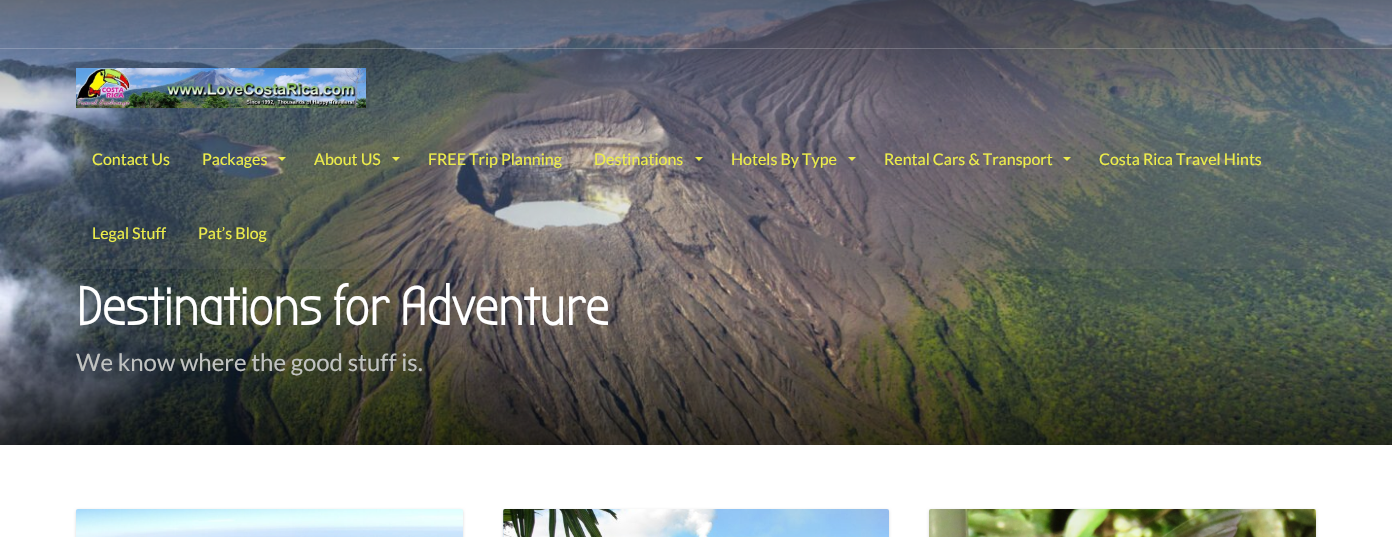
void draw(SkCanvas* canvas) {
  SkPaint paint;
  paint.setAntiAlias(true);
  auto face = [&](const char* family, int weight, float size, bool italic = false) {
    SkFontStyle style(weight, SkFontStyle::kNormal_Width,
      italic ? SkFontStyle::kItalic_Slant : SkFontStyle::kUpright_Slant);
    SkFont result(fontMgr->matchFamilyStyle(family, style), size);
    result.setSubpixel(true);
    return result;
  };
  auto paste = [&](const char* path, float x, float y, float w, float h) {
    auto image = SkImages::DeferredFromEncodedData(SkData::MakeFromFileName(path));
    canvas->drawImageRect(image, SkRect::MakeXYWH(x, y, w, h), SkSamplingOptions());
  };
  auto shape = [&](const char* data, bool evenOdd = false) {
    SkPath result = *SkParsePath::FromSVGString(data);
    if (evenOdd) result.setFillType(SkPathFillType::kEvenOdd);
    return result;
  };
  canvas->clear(0xffffffff);
  paste("img/2.png", 0, 0, 1392, 445);
  paint.setColor(0x336d6d6d);
  canvas->drawRect(SkRect::MakeXYWH(0, 0, 1392, 269), paint);
  paint.setColor(0x33ffffff);
  canvas->drawRect(SkRect::MakeXYWH(0, 48, 1392, 1), paint);
  paste("img/1.png", 76, 68, 290, 41);
  paint.setColor(0xffeded4b);
  canvas->drawPath(shape("M278 157H286L282 161Z"), paint);
  canvas->drawPath(shape("M392 157H400L396 161Z"), paint);
  canvas->drawPath(shape("M695 157H703L699 161Z"), paint);
  canvas->drawPath(shape("M848 157H856L852 161Z"), paint);
  canvas->drawPath(shape("M1063 157H1071L1067 161Z"), paint);
  paint.setColor(0x26000000);
  paint.setMaskFilter(SkMaskFilter::MakeBlur(kNormal_SkBlurStyle, 1.5f));
  canvas->drawRoundRect(SkRect::MakeXYWH(76, 510, 387, 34), 2, 2, paint);
  paint.setMaskFilter(nullptr);
  paste("img/3.png", 76, 509, 387, 28);
  paint.setMaskFilter(SkMaskFilter::MakeBlur(kNormal_SkBlurStyle, 1.5f));
  canvas->drawRoundRect(SkRect::MakeXYWH(503, 510, 386, 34), 2, 2, paint);
  paint.setMaskFilter(nullptr);
  paste("img/4.png", 503, 509, 386, 28);
  paint.setMaskFilter(SkMaskFilter::MakeBlur(kNormal_SkBlurStyle, 1.5f));
  canvas->drawRoundRect(SkRect::MakeXYWH(929, 510, 387, 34), 2, 2, paint);
  paint.setMaskFilter(nullptr);
  paste("img/5.png", 929, 509, 387, 28);
  auto f0 = face("Lato", 400, 16);
  paint.setColor(0xffeded4b);
  {
    const struct { const char* s; float x, y; } items[] = {
      {"Contact Us", 92, 165},
      {"Packages", 202, 165},
      {"About US", 314, 165},
      {"FREE Trip Planning", 428, 165},
      {"Destinations", 594, 165},
      {"Hotels By Type", 731, 165},
      {"Rental Cars & Transport", 884, 165},
      {"Costa Rica Travel Hints", 1099, 165},
      {"Legal Stuff", 92, 239},
      {"Pat’s Blog", 198, 239},
    };
    for (auto [s, x, y] : items) {
      canvas->drawString(s, x, y, f0, paint);
    }
  }
  auto f1 = face("Bubbler One", 700, 54);
  paint.setColor(0xffffffff);
  canvas->drawString("Destinations for Adventure", 76, 325, f1, paint);
  auto f2 = face("Lato", 400, 24);
  paint.setColor(0xffc1c3c1);
  canvas->drawString("We know where the good stuff is.", 76, 371, f2, paint);
}
